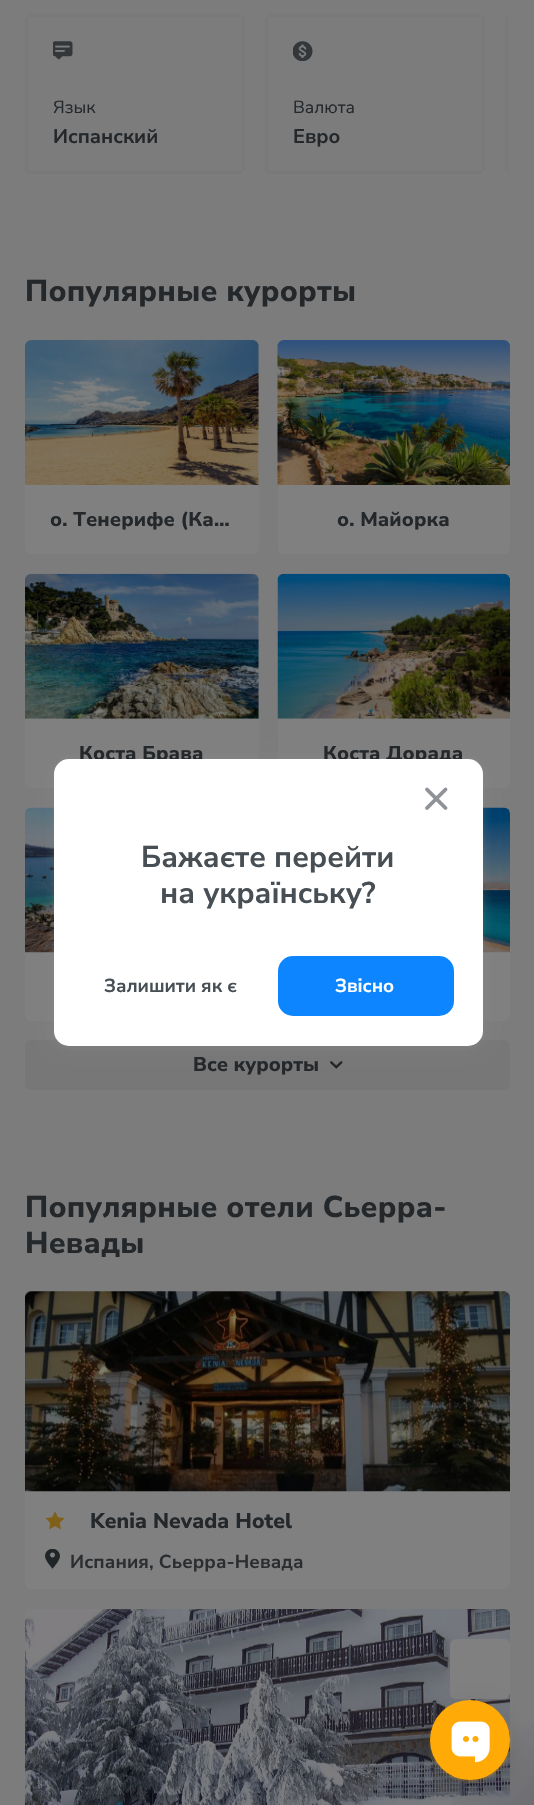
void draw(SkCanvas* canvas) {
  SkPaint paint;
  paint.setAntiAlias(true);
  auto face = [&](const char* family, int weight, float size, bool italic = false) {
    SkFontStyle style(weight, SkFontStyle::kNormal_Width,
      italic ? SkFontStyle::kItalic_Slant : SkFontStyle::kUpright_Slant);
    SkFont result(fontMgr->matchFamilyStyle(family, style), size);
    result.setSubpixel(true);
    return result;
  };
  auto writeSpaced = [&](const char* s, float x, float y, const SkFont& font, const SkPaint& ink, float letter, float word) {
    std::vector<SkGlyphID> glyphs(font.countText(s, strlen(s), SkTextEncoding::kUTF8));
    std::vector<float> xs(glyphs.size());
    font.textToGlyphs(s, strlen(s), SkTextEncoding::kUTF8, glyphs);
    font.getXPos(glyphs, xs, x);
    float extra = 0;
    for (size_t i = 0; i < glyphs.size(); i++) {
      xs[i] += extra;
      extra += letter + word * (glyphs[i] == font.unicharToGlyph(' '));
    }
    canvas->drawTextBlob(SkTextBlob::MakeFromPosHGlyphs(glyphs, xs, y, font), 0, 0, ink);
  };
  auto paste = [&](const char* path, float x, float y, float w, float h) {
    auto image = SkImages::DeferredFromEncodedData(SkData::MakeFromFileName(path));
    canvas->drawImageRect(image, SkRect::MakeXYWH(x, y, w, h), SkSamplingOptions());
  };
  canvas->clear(0xff7c7c7d);
  paint.setStroke(true);
  paint.setStrokeWidth(3);
  paint.setColor(0xff797979);
  canvas->drawRoundRect(SkRect::MakeXYWH(26.5f, 15.5f, 217, 157), 4.5f, 4.5f, paint);
  paste("img/1.png", 53, 41, 20, 19);
  canvas->drawRoundRect(SkRect::MakeXYWH(266.5f, 15.5f, 217, 157), 4.5f, 4.5f, paint);
  paste("img/2.png", 293, 41, 20, 20);
  canvas->save();
  canvas->clipRect(SkRect::MakeXYWH(25, 14, 485, 160));
  canvas->drawRoundRect(SkRect::MakeXYWH(506.5f, 15.5f, 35, 157), 4.5f, 4.5f, paint);
  canvas->restore();
  paint.setStroke(false);
  paint.setColor(0xff808080);
  canvas->drawRoundRect(SkRect::MakeXYWH(25, 340, 234, 214), 6, 6, paint);
  paste("img/3.png", 25, 340, 234, 145);
  canvas->drawRoundRect(SkRect::MakeXYWH(278, 340, 232, 214), 6, 6, paint);
  paste("img/4.png", 277, 340, 233, 145);
  canvas->drawRoundRect(SkRect::MakeXYWH(25, 574, 234, 214), 6, 6, paint);
  paste("img/5.png", 25, 573, 234, 146);
  canvas->drawRoundRect(SkRect::MakeXYWH(278, 574, 232, 214), 6, 6, paint);
  paste("img/6.png", 277, 573, 233, 146);
  canvas->drawRoundRect(SkRect::MakeXYWH(25, 808, 234, 213), 6, 6, paint);
  paste("img/7.png", 25, 807, 29, 146);
  canvas->drawRoundRect(SkRect::MakeXYWH(278, 808, 232, 213), 6, 6, paint);
  paste("img/8.png", 483, 807, 27, 146);
  paint.setColor(0xff777777);
  canvas->drawRoundRect(SkRect::MakeXYWH(25, 1040, 485, 50), 6, 6, paint);
  paste("img/9.png", 330, 1061, 13, 8);
  paint.setColor(0xff808080);
  canvas->drawRoundRect(SkRect::MakeXYWH(25, 1291, 485, 298), 6, 6, paint);
  paste("img/10.png", 25, 1291, 485, 201);
  paste("img/11.png", 45, 1511, 20, 19);
  paste("img/12.png", 45, 1549, 15, 20);
  paste("img/13.png", 25, 1609, 485, 196);
  canvas->drawRoundRect(SkRect::MakeXYWH(450, 1639, 60, 60), 6, 6, paint);
  paint.setColor(0x298f9397);
  paint.setMaskFilter(SkMaskFilter::MakeBlur(kNormal_SkBlurStyle, 7.5f));
  canvas->drawRoundRect(SkRect::MakeXYWH(54, 760, 429, 288), 15, 15, paint);
  paint.setMaskFilter(nullptr);
  paint.setColor(0x368f9397);
  paint.setMaskFilter(SkMaskFilter::MakeBlur(kNormal_SkBlurStyle, 3));
  canvas->drawRoundRect(SkRect::MakeXYWH(54, 760, 429, 288), 15, 15, paint);
  paint.setMaskFilter(nullptr);
  {
    const SkColor colors[] = {0x000e0e29, 0x330e0e29};
    const float stops[] = {0.5f, 1};
    const SkPoint ends[] = {{410, 1680}, {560, 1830}};
    paint.setShader(SkGradientShader::MakeLinear(ends, colors, stops, 2, SkTileMode::kClamp));
    paint.setAlpha(255);
  }
  canvas->drawRect(SkRect::MakeXYWH(452, 1723, 82, 82), paint);
  paint.setShader(nullptr);
  paint.setColor(0x29000000);
  paint.setMaskFilter(SkMaskFilter::MakeBlur(kNormal_SkBlurStyle, 12.5f));
  canvas->drawRoundRect(SkRect::MakeXYWH(430, 1710, 80, 80), 40, 40, paint);
  paint.setMaskFilter(nullptr);
  paint.setColor(0xffffaa06);
  paint.setMaskFilter(SkMaskFilter::MakeBlur(kNormal_SkBlurStyle, 2.5f));
  canvas->drawRoundRect(SkRect::MakeXYWH(433, 1704, 75, 75), 37.5f, 37.5f, paint);
  paint.setMaskFilter(nullptr);
  canvas->drawCircle(470, 1740, 40, paint);
  paste("img/15.png", 451, 1721, 39, 42);
  auto f0 = face("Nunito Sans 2", 200, 17.5f);
  paint.setColor(0xff24282b);
  canvas->drawString("Язык", 53, 113, f0, paint);
  auto f1 = face("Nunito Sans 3", 200, 20);
  canvas->drawString("Испанский", 53, 143, f1, paint);
  canvas->drawString("Валюта", 293, 113, f0, paint);
  canvas->drawString("Евро", 293, 143, f1, paint);
  auto f2 = face("Nunito Sans", 200, 30);
  writeSpaced("Популярные курорты", 25, 301, f2, paint, 0.25f, 0);
  auto f3 = face("Nunito Sans", 200, 20);
  {
    const struct { const char* s; float x, y; } items[] = {
      {"о. Тенерифе (Ка…", 50, 526},
      {"о. Майорка", 337, 526},
      {"Коста Брава", 79, 760},
      {"Коста Дорада", 323, 760},
    };
    for (auto [s, x, y] : items) {
      writeSpaced(s, x, y, f3, paint, 0.1f, 0);
    }
  }
  canvas->drawString("Все курорты", 193, 1071, f3, paint);
  writeSpaced("Популярные отели Сьерра-", 25, 1217, f2, paint, 0.25f, 0);
  writeSpaced("Невады", 25, 1253, f2, paint, 0.25f, 0);
  auto f4 = face("Nunito Sans", 200, 21.25f);
  writeSpaced("Kenia Nevada Hotel", 90, 1528, f4, paint, 0.1f, 0);
  auto f5 = face("Nunito Sans 3", 200, 18.75f);
  paint.setColor(0xff2a2e31);
  writeSpaced("Испания, Сьерра-Невада", 70, 1568, f5, paint, 0.1f, 0);
  paint.setColor(0xffffffff);
  canvas->drawRoundRect(SkRect::MakeXYWH(54, 759, 429, 287), 15, 15, paint);
  paste("img/14.png", 425, 787, 23, 23);
  auto f6 = face("Nunito Sans 3", 200, 30);
  paint.setColor(0xff474f55);
  canvas->drawString("Бажаєте перейти", 141, 867, f6, paint);
  canvas->drawString("на українську?", 160, 903, f6, paint);
  canvas->drawString("Залишити як є", 104, 992, f5, paint);
  paint.setColor(0xff0d85ff);
  canvas->drawRoundRect(SkRect::MakeXYWH(278, 956, 176, 60), 15, 15, paint);
  paint.setColor(0xffffffff);
  canvas->drawString("Звісно", 335, 992, f5, paint);
}
